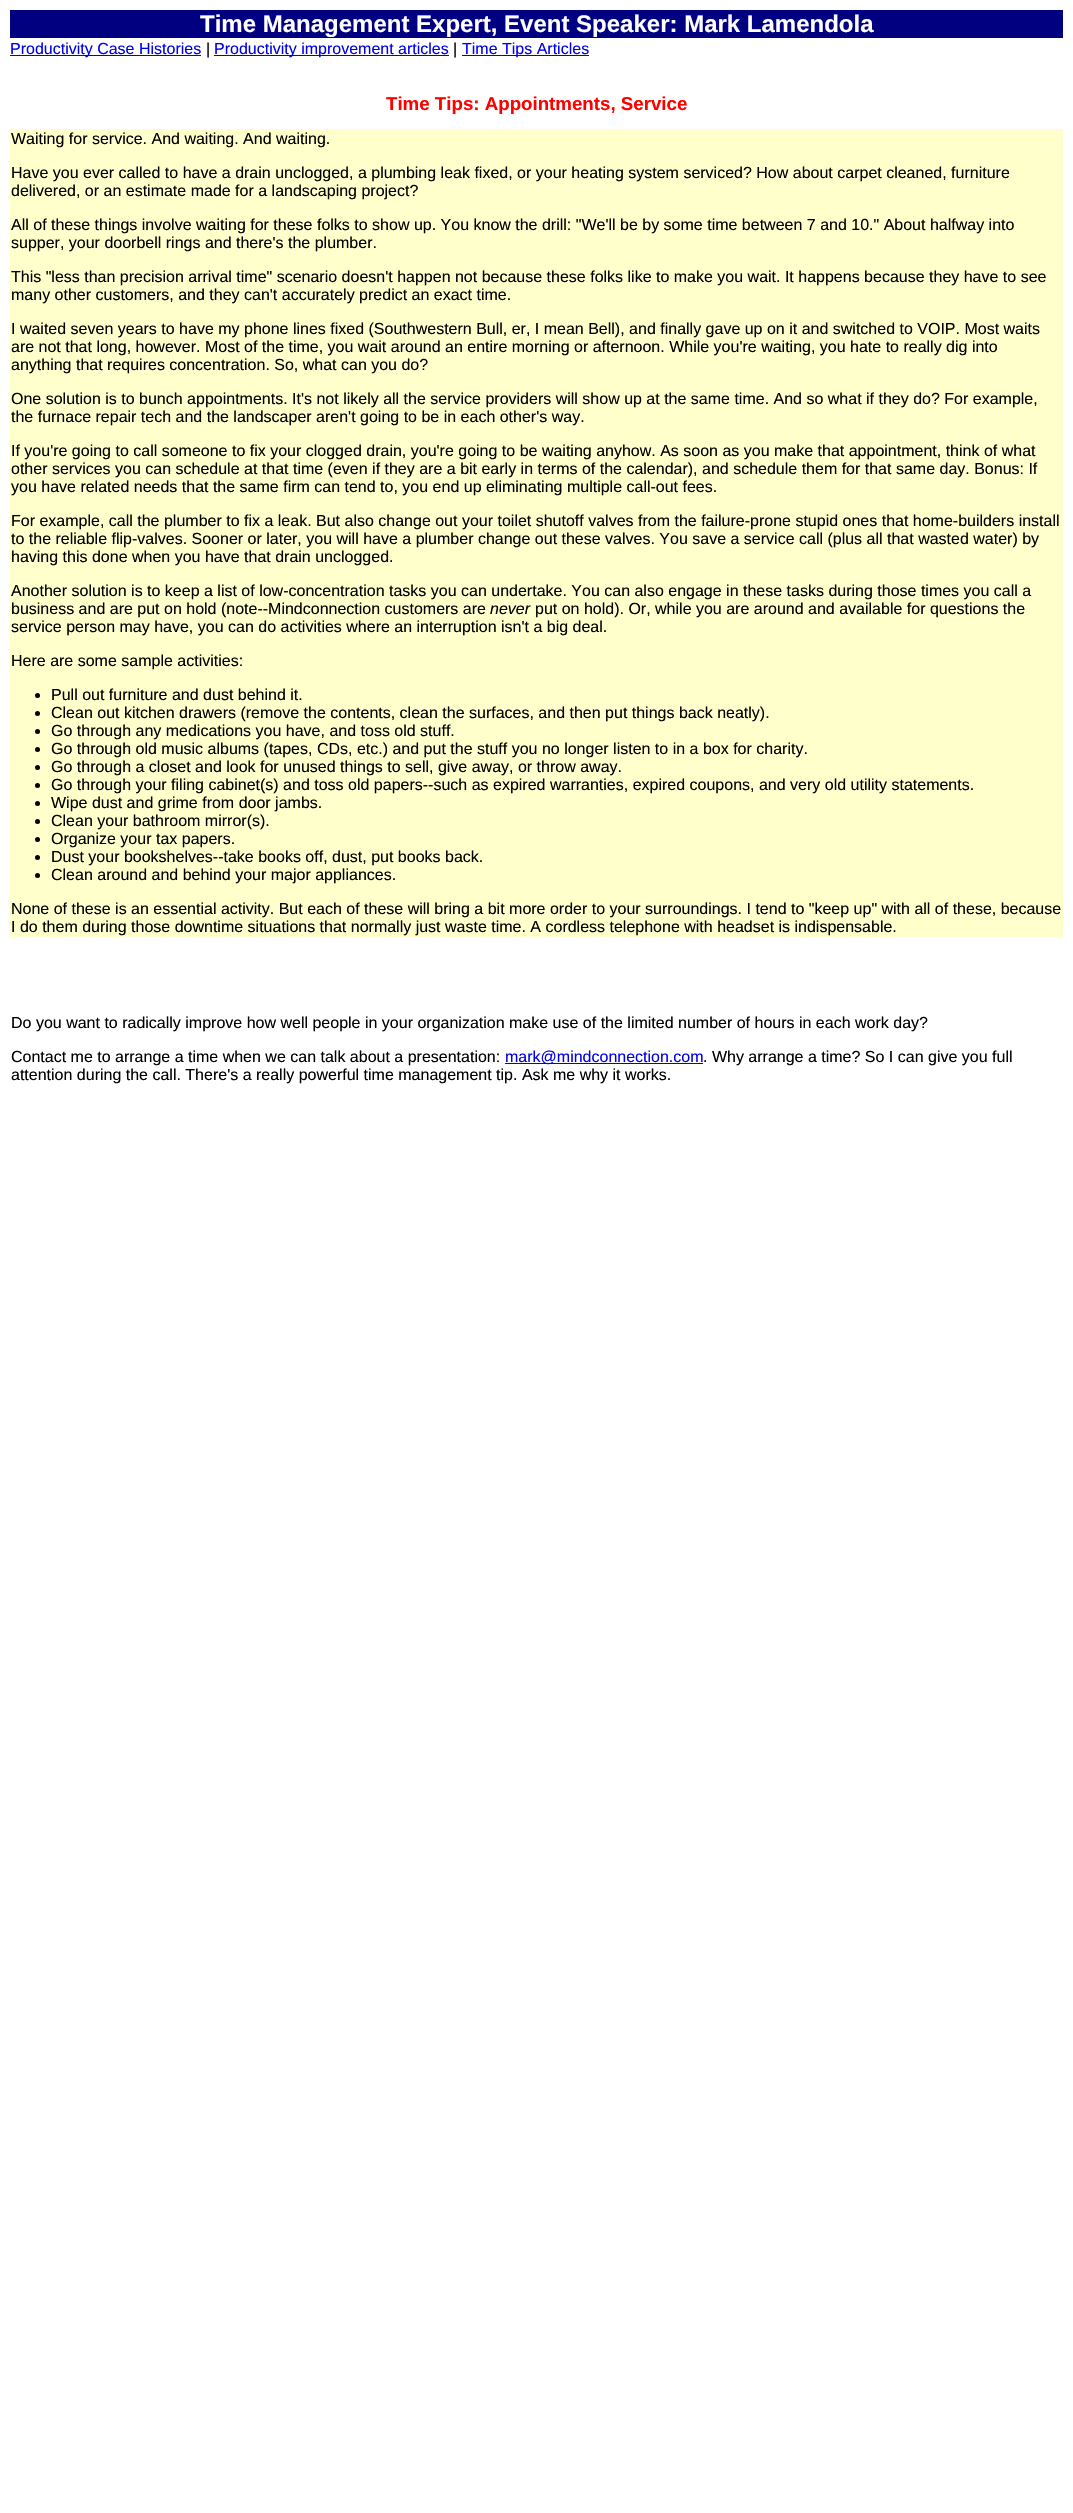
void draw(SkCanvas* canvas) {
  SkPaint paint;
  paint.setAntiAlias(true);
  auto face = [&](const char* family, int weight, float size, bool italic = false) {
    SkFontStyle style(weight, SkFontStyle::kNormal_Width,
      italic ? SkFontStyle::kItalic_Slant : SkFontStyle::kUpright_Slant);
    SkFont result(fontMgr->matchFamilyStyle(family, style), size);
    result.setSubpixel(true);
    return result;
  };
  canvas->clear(0xffffffff);
  {
    const struct { float x, y, w, h; SkColor color; } items[] = {
      {10, 10, 1053, 28, 0xff000080},
      {10, 55, 191, 1, 0xff0000ee},
      {214, 55, 235, 1, 0xff0000ee},
      {462, 55, 127, 1, 0xff0000ee},
      {10, 129, 1053, 808, 0xffffffcc},
    };
    for (auto [x, y, w, h, color] : items) {
      paint.setColor(color);
      canvas->drawRect(SkRect::MakeXYWH(x, y, w, h), paint);
    }
  }
  paint.setColor(0xff000000);
  canvas->drawCircle(37.5f, 695.5f, 2.5f, paint);
  canvas->drawCircle(37.5f, 713.5f, 2.5f, paint);
  canvas->drawCircle(37.5f, 731.5f, 2.5f, paint);
  canvas->drawCircle(37.5f, 749.5f, 2.5f, paint);
  canvas->drawCircle(37.5f, 767.5f, 2.5f, paint);
  canvas->drawCircle(37.5f, 785.5f, 2.5f, paint);
  canvas->drawCircle(37.5f, 803.5f, 2.5f, paint);
  canvas->drawCircle(37.5f, 821.5f, 2.5f, paint);
  canvas->drawCircle(37.5f, 839.5f, 2.5f, paint);
  canvas->drawCircle(37.5f, 857.5f, 2.5f, paint);
  canvas->drawCircle(37.5f, 875.5f, 2.5f, paint);
  paint.setColor(0xff0000ee);
  canvas->drawRect(SkRect::MakeXYWH(505, 1063, 198, 1), paint);
  auto f0 = face("Liberation Sans", 700, 24);
  paint.setColor(0xffffffff);
  canvas->drawString("Time Management Expert, Event Speaker: Mark Lamendola", 200, 32, f0, paint);
  auto f1 = face("Liberation Sans", 400, 16);
  paint.setColor(0xff0000ee);
  canvas->drawString("Productivity Case Histories", 10, 54, f1, paint);
  paint.setColor(0xff000000);
  canvas->drawString("|", 206, 54, f1, paint);
  paint.setColor(0xff0000ee);
  canvas->drawString("Productivity improvement articles", 214, 54, f1, paint);
  paint.setColor(0xff000000);
  canvas->drawString("|", 453, 54, f1, paint);
  paint.setColor(0xff0000ee);
  canvas->drawString("Time Tips Articles", 462, 54, f1, paint);
  auto f2 = face("Liberation Sans", 700, 18.7f);
  paint.setColor(0xffff0000);
  canvas->drawString("Time Tips: Appointments, Service", 386, 110, f2, paint);
  paint.setColor(0xff000000);
  {
    const struct { const char* s; float x, y; } items[] = {
      {"Waiting for service. And waiting. And waiting.", 11, 144},
      {"Have you ever called to have a drain unclogged, a plumbing leak fixed, or your heating system serviced? How about carpet cleaned, furniture", 11, 178},
      {"delivered, or an estimate made for a landscaping project?", 11, 196},
      {"All of these things involve waiting for these folks to show up. You know the drill: \"We'll be by some time between 7 and 10.\" About halfway into", 11, 230},
      {"supper, your doorbell rings and there's the plumber.", 11, 248},
      {"This \"less than precision arrival time\" scenario doesn't happen not because these folks like to make you wait. It happens because they have to see", 11, 282},
      {"many other customers, and they can't accurately predict an exact time.", 11, 300},
      {"I waited seven years to have my phone lines fixed (Southwestern Bull, er, I mean Bell), and finally gave up on it and switched to VOIP. Most waits", 11, 334},
      {"are not that long, however. Most of the time, you wait around an entire morning or afternoon. While you're waiting, you hate to really dig into", 11, 352},
      {"anything that requires concentration. So, what can you do?", 11, 370},
      {"One solution is to bunch appointments. It's not likely all the service providers will show up at the same time. And so what if they do? For example,", 11, 404},
      {"the furnace repair tech and the landscaper aren't going to be in each other's way.", 11, 422},
      {"If you're going to call someone to fix your clogged drain, you're going to be waiting anyhow. As soon as you make that appointment, think of what", 11, 456},
      {"other services you can schedule at that time (even if they are a bit early in terms of the calendar), and schedule them for that same day. Bonus: If", 11, 474},
      {"you have related needs that the same firm can tend to, you end up eliminating multiple call-out fees.", 11, 492},
      {"For example, call the plumber to fix a leak. But also change out your toilet shutoff valves from the failure-prone stupid ones that home-builders install", 11, 526},
      {"to the reliable flip-valves. Sooner or later, you will have a plumber change out these valves. You save a service call (plus all that wasted water) by", 11, 544},
      {"having this done when you have that drain unclogged.", 11, 562},
      {"Another solution is to keep a list of low-concentration tasks you can undertake. You can also engage in these tasks during those times you call a", 11, 596},
      {"business and are put on hold (note--Mindconnection customers are", 11, 614},
    };
    for (auto [s, x, y] : items) {
      canvas->drawString(s, x, y, f1, paint);
    }
  }
  auto f3 = face("Liberation Sans", 400, 16, true);
  canvas->drawString("never", 490, 614, f3, paint);
  {
    const struct { const char* s; float x, y; } items[] = {
      {"put on hold). Or, while you are around and available for questions the", 535, 614},
      {"service person may have, you can do activities where an interruption isn't a big deal.", 11, 632},
      {"Here are some sample activities:", 11, 666},
      {"Pull out furniture and dust behind it.", 51, 700},
      {"Clean out kitchen drawers (remove the contents, clean the surfaces, and then put things back neatly).", 51, 718},
      {"Go through any medications you have, and toss old stuff.", 51, 736},
      {"Go through old music albums (tapes, CDs, etc.) and put the stuff you no longer listen to in a box for charity.", 51, 754},
      {"Go through a closet and look for unused things to sell, give away, or throw away.", 51, 772},
      {"Go through your filing cabinet(s) and toss old papers--such as expired warranties, expired coupons, and very old utility statements.", 51, 790},
      {"Wipe dust and grime from door jambs.", 51, 808},
      {"Clean your bathroom mirror(s).", 51, 826},
      {"Organize your tax papers.", 51, 844},
      {"Dust your bookshelves--take books off, dust, put books back.", 51, 862},
      {"Clean around and behind your major appliances.", 51, 880},
      {"None of these is an essential activity. But each of these will bring a bit more order to your surroundings. I tend to \"keep up\" with all of these, because", 11, 914},
      {"I do them during those downtime situations that normally just waste time. A cordless telephone with headset is indispensable.", 11, 932},
      {"Do you want to radically improve how well people in your organization make use of the limited number of hours in each work day?", 11, 1028},
      {"Contact me to arrange a time when we can talk about a presentation:", 11, 1062},
    };
    for (auto [s, x, y] : items) {
      canvas->drawString(s, x, y, f1, paint);
    }
  }
  paint.setColor(0xff0000ee);
  canvas->drawString("mark@mindconnection.com", 505, 1062, f1, paint);
  paint.setColor(0xff000000);
  canvas->drawString(". Why arrange a time? So I can give you full", 703, 1062, f1, paint);
  canvas->drawString("attention during the call. There's a really powerful time management tip. Ask me why it works.", 11, 1080, f1, paint);
}
